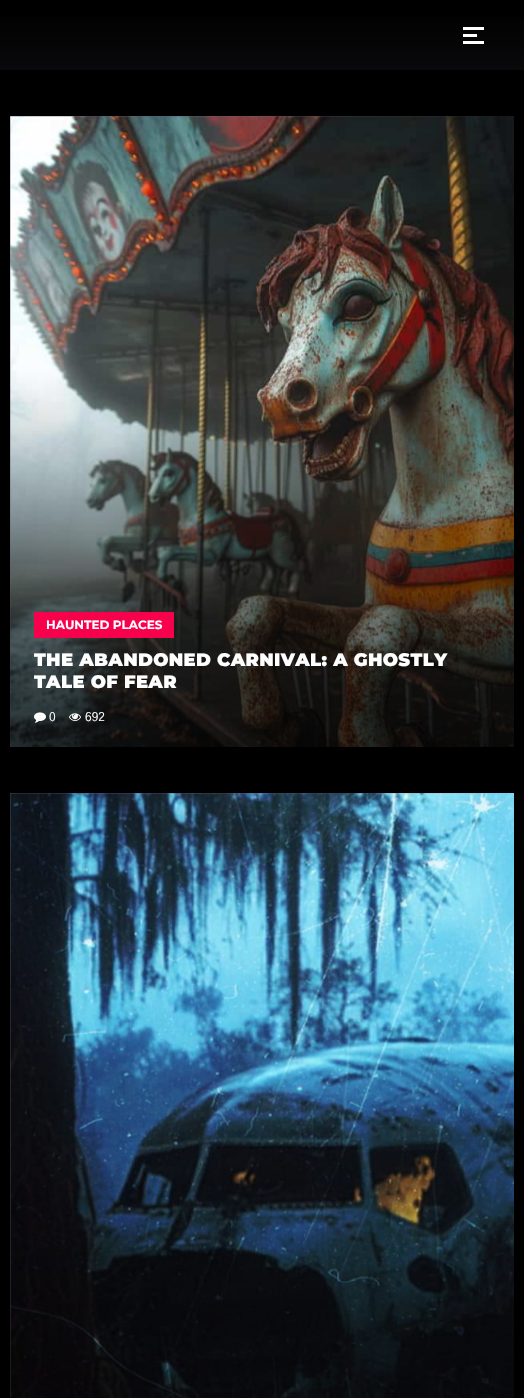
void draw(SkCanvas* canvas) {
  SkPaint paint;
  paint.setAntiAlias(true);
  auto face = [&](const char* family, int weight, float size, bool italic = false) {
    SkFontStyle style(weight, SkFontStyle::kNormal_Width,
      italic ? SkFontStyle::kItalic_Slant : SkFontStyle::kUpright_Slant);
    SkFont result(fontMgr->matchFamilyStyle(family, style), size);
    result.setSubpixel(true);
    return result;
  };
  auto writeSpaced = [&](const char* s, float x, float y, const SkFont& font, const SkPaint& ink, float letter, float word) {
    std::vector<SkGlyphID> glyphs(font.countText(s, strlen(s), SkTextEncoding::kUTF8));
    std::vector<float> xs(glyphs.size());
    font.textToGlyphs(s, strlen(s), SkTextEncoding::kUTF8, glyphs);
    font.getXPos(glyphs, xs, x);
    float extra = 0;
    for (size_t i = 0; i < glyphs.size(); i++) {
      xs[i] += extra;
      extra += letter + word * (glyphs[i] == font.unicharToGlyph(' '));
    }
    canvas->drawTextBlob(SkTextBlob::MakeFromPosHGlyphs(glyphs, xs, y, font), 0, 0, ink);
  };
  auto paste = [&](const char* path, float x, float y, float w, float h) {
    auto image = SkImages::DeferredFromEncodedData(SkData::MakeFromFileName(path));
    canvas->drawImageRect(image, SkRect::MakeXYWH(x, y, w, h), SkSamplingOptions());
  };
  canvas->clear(0xff000000);
  {
    const SkColor colors[] = {0xff000000, 0xff09080a};
    const float stops[] = {0, 1};
    const SkPoint ends[] = {{262, 0}, {262, 70}};
    paint.setShader(SkGradientShader::MakeLinear(ends, colors, stops, 2, SkTileMode::kClamp));
    paint.setAlpha(255);
  }
  canvas->drawRect(SkRect::MakeXYWH(0, 17, 524, 53), paint);
  paint.setShader(nullptr);
  {
    const struct { float x, y, w, h; SkColor color; } items[] = {
      {463, 27, 21, 3, 0xffffffff},
      {463, 34, 14, 3, 0xffffffff},
      {463, 41, 21, 3, 0xffffffff},
    };
    for (auto [x, y, w, h, color] : items) {
      paint.setColor(color);
      canvas->drawRect(SkRect::MakeXYWH(x, y, w, h), paint);
    }
  }
  paste("img/1.png", 10, 116, 504, 631);
  paint.setColor(0xfff8014c);
  canvas->drawRect(SkRect::MakeXYWH(34, 612, 140, 26), paint);
  paste("img/2.png", 34, 712, 12, 11);
  paste("img/3.png", 69, 713, 12, 8);
  paste("img/4.png", 10, 793, 504, 605);
  auto f0 = face("Montserrat", 700, 12);
  paint.setColor(0xffffffff);
  canvas->drawString("HAUNTED PLACES", 46, 629, f0, paint);
  auto f1 = face("Montserrat", 900, 18);
  writeSpaced("THE ABANDONED CARNIVAL: A GHOSTLY", 34, 666, f1, paint, 0.35f, 0);
  writeSpaced("TALE OF FEAR", 34, 688, f1, paint, 0.35f, 0);
  auto f2 = face("Gothic A1", 400, 12);
  canvas->drawString("0", 49, 721, f2, paint);
  canvas->drawString("692", 85, 721, f2, paint);
}
